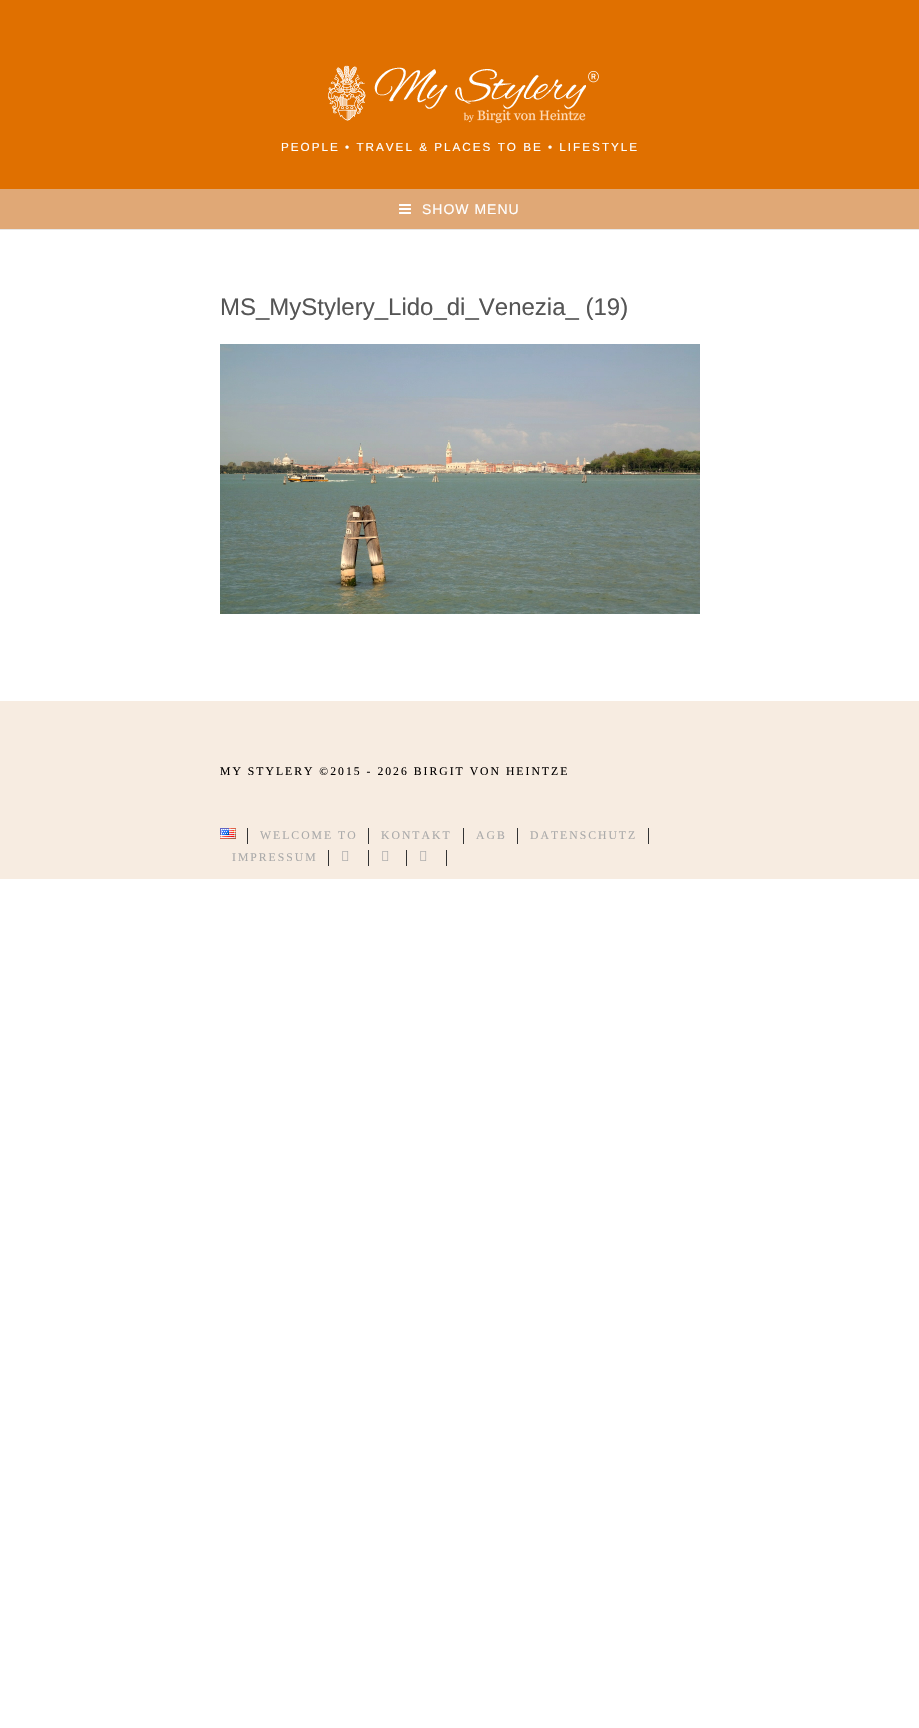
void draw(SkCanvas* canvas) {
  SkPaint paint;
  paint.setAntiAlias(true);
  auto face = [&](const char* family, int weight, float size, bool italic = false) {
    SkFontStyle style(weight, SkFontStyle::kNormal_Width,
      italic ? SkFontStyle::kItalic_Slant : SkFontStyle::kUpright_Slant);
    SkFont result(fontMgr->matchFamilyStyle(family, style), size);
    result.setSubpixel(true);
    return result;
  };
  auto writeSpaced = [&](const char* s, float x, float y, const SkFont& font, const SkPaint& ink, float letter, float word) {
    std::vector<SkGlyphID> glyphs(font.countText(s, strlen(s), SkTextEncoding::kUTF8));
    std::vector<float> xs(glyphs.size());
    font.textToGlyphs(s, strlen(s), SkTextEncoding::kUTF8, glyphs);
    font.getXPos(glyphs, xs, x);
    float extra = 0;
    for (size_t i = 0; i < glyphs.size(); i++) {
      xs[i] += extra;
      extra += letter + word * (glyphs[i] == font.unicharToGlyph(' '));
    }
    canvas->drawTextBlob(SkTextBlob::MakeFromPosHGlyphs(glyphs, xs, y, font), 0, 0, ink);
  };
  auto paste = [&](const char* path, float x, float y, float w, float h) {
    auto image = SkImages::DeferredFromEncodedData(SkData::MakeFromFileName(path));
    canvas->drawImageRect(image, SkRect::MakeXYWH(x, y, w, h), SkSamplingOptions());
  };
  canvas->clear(0xffffffff);
  paint.setColor(0xffe07000);
  canvas->drawRect(SkRect::MakeXYWH(0, 0, 919, 189), paint);
  paste("img/1.png", 328, 65, 271, 59);
  paint.setColor(0xffe0a876);
  canvas->drawRect(SkRect::MakeXYWH(0, 189, 919, 40), paint);
  paint.setColor(0xffe7e7e7);
  canvas->drawRect(SkRect::MakeXYWH(0, 229, 919, 1), paint);
  paste("img/2.png", 399, 204, 12, 10);
  paste("img/3.png", 220, 344, 480, 270);
  paint.setColor(0xfff7ece1);
  canvas->drawRect(SkRect::MakeXYWH(0, 701, 919, 178), paint);
  paste("img/4.png", 220, 828, 16, 11);
  {
    const struct { float x, y, w, h; SkColor color; } items[] = {
      {247, 828, 1, 16, 0xff333333},
      {368, 828, 1, 16, 0xff333333},
      {463, 828, 1, 16, 0xff333333},
      {517, 828, 1, 16, 0xff333333},
      {648, 828, 1, 16, 0xff333333},
      {328, 850, 1, 16, 0xff333333},
    };
    for (auto [x, y, w, h, color] : items) {
      paint.setColor(color);
      canvas->drawRect(SkRect::MakeXYWH(x, y, w, h), paint);
    }
  }
  paste("img/5.png", 342, 851, 7, 10);
  canvas->drawRect(SkRect::MakeXYWH(368, 850, 1, 16), paint);
  paste("img/5.png", 382, 851, 7, 10);
  canvas->drawRect(SkRect::MakeXYWH(406, 850, 1, 16), paint);
  paste("img/5.png", 420, 851, 7, 10);
  canvas->drawRect(SkRect::MakeXYWH(446, 850, 1, 16), paint);
  auto f0 = face("Liberation Sans", 400, 11.7f);
  paint.setColor(0xffffffff);
  writeSpaced("PEOPLE • TRAVEL & PLACES TO BE • LIFESTYLE", 281, 151, f0, paint, 2, 0);
  auto f1 = face("Liberation Sans", 400, 14);
  writeSpaced("SHOW MENU", 422, 214, f1, paint, 1, 0);
  auto f2 = face("Liberation Sans", 400, 24);
  paint.setColor(0xff555555);
  canvas->drawString("MS_MyStylery_Lido_di_Venezia_ (19)", 220, 315, f2, paint);
  auto f3 = face("Liberation Serif", 400, 11.7f);
  paint.setColor(0xff020000);
  writeSpaced("MY STYLERY ©2015 - 2026 BIRGIT VON HEINTZE", 220, 775, f3, paint, 2, 0);
  paint.setColor(0xffaaaaaa);
  {
    const struct { const char* s; float x, y; } items[] = {
      {"WELCOME TO", 260, 839},
      {"KONTAKT", 381, 839},
      {"AGB", 476, 839},
      {"DATENSCHUTZ", 530, 839},
      {"IMPRESSUM", 232, 861},
    };
    for (auto [s, x, y] : items) {
      writeSpaced(s, x, y, f3, paint, 2, 0);
    }
  }
}
